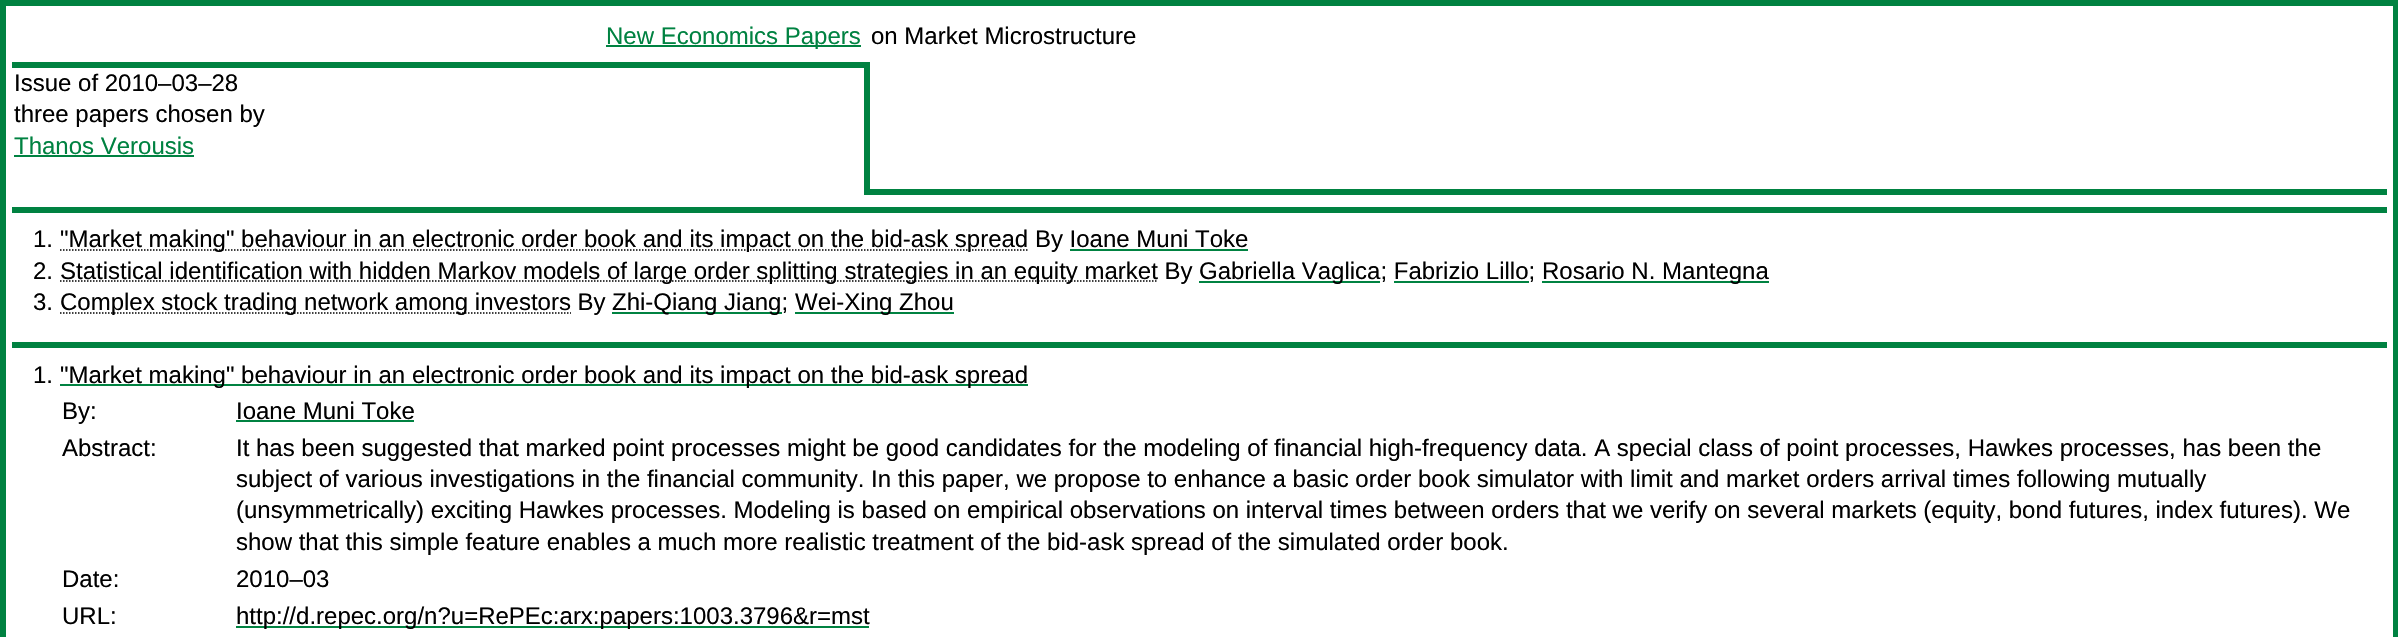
void draw(SkCanvas* canvas) {
  SkPaint paint;
  paint.setAntiAlias(true);
  auto face = [&](const char* family, int weight, float size, bool italic = false) {
    SkFontStyle style(weight, SkFontStyle::kNormal_Width,
      italic ? SkFontStyle::kItalic_Slant : SkFontStyle::kUpright_Slant);
    SkFont result(fontMgr->matchFamilyStyle(family, style), size);
    result.setSubpixel(true);
    return result;
  };
  auto shape = [&](const char* data, bool evenOdd = false) {
    SkPath result = *SkParsePath::FromSVGString(data);
    if (evenOdd) result.setFillType(SkPathFillType::kEvenOdd);
    return result;
  };
  canvas->clear(0xffffffff);
  paint.setStroke(true);
  paint.setStrokeWidth(6);
  paint.setColor(0xff008241);
  canvas->drawRect(SkRect::MakeXYWH(3, 3, 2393, 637), paint);
  paint.setStroke(false);
  {
    const struct { float x, y, w, h; SkColor color; } items[] = {
      {606, 45, 255, 2, 0xff008241},
      {12, 62, 855, 6, 0xff008241},
      {864, 62, 3, 133, 0xff008241},
      {14, 155, 180, 2, 0xff008241},
      {867, 189, 1520, 6, 0xff008241},
      {867, 62, 3, 133, 0xff008241},
      {12, 207, 2375, 6, 0xff008241},
    };
    for (auto [x, y, w, h, color] : items) {
      paint.setColor(color);
      canvas->drawRect(SkRect::MakeXYWH(x, y, w, h), paint);
    }
  }
  paint.setStroke(true);
  paint.setStrokeWidth(1.5f);
  paint.setColor(0xff000000);
  paint.setPathEffect(SkDashPathEffect::Make({{1.5f, 1.5f}}, 0));
  canvas->drawPath(shape("M60 250H1028"), paint);
  paint.setPathEffect(nullptr);
  paint.setPathEffect(SkDashPathEffect::Make({{1.5f, 1.5f}}, 0));
  canvas->drawPath(shape("M60 281H1158"), paint);
  paint.setPathEffect(nullptr);
  paint.setStroke(false);
  paint.setColor(0xff008241);
  canvas->drawRect(SkRect::MakeXYWH(1199, 281, 181, 2), paint);
  canvas->drawRect(SkRect::MakeXYWH(1542, 281, 227, 2), paint);
  paint.setStroke(true);
  paint.setColor(0xff000000);
  paint.setPathEffect(SkDashPathEffect::Make({{1.5f, 1.5f}}, 0));
  canvas->drawPath(shape("M60 313H571"), paint);
  paint.setPathEffect(nullptr);
  paint.setStroke(false);
  {
    const struct { float x, y, w, h; SkColor color; } items[] = {
      {612, 312, 170, 2, 0xff008241},
      {795, 312, 159, 2, 0xff008241},
      {12, 342, 2375, 6, 0xff008241},
      {60, 384, 968, 2, 0xff008241},
      {236, 420, 178, 2, 0xff008241},
      {236, 626, 633, 2, 0xff008241},
    };
    for (auto [x, y, w, h, color] : items) {
      paint.setColor(color);
      canvas->drawRect(SkRect::MakeXYWH(x, y, w, h), paint);
    }
  }
  auto f0 = face("Liberation Sans", 400, 24);
  canvas->drawString("New Economics Papers", 606, 44, f0, paint);
  paint.setColor(0xff000000);
  {
    const struct { const char* s; float x, y; } items[] = {
      {"on Market Microstructure", 871, 44},
      {"Issue of 2010‒03‒28", 14, 91},
      {"three papers chosen by", 14, 122},
    };
    for (auto [s, x, y] : items) {
      canvas->drawString(s, x, y, f0, paint);
    }
  }
  paint.setColor(0xff008241);
  canvas->drawString("Thanos Verousis", 14, 154, f0, paint);
  paint.setColor(0xff000000);
  canvas->drawString("1.", 33, 247, f0, paint);
  canvas->drawString("\"Market making\" behaviour in an electronic order book and its impact on the bid-ask spread By Ioane Muni Toke", 60, 247, f0, paint);
  paint.setColor(0xff008241);
  canvas->drawRect(SkRect::MakeXYWH(1070, 249, 178, 2), paint);
  paint.setColor(0xff000000);
  {
    const struct { const char* s; float x, y; } items[] = {
      {"2.", 33, 279},
      {"Statistical identification with hidden Markov models of large order splitting strategies in an equity market By", 60, 279},
      {"Gabriella Vaglica; Fabrizio Lillo;", 1199, 279},
      {"Rosario N. Mantegna", 1542, 279},
    };
    for (auto [s, x, y] : items) {
      canvas->drawString(s, x, y, f0, paint);
    }
  }
  paint.setColor(0xff008241);
  canvas->drawRect(SkRect::MakeXYWH(1394, 281, 135, 2), paint);
  paint.setColor(0xff000000);
  {
    const struct { const char* s; float x, y; } items[] = {
      {"3.", 33, 310},
      {"Complex stock trading network among investors By", 60, 310},
      {"Zhi-Qiang Jiang;", 612, 310},
      {"Wei-Xing Zhou", 795, 310},
      {"1.", 33, 383},
      {"\"Market making\" behaviour in an electronic order book and its impact on the bid-ask spread", 60, 383},
      {"By:", 62, 419},
      {"Ioane Muni Toke", 236, 419},
      {"Abstract:", 62, 456},
      {"It has been suggested that marked point processes might be good candidates for the modeling of financial high-frequency data. A special class of point processes, Hawkes processes, has been the", 236, 456},
      {"subject of various investigations in the financial community. In this paper, we propose to enhance a basic order book simulator with limit and market orders arrival times following mutually", 236, 487},
      {"(unsymmetrically) exciting Hawkes processes. Modeling is based on empirical observations on interval times between orders that we verify on several markets (equity, bond futures, index futures). We", 236, 518},
      {"show that this simple feature enables a much more realistic treatment of the bid-ask spread of the simulated order book.", 236, 550},
      {"Date:", 62, 587},
      {"2010–03", 236, 587},
      {"URL:", 62, 624},
      {"http://d.repec.org/n?u=RePEc:arx:papers:1003.3796&r=mst", 236, 624},
    };
    for (auto [s, x, y] : items) {
      canvas->drawString(s, x, y, f0, paint);
    }
  }
}
